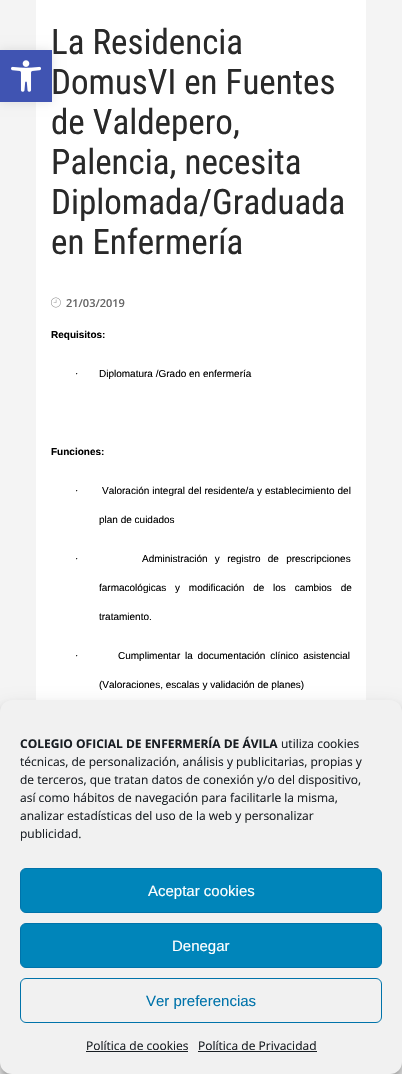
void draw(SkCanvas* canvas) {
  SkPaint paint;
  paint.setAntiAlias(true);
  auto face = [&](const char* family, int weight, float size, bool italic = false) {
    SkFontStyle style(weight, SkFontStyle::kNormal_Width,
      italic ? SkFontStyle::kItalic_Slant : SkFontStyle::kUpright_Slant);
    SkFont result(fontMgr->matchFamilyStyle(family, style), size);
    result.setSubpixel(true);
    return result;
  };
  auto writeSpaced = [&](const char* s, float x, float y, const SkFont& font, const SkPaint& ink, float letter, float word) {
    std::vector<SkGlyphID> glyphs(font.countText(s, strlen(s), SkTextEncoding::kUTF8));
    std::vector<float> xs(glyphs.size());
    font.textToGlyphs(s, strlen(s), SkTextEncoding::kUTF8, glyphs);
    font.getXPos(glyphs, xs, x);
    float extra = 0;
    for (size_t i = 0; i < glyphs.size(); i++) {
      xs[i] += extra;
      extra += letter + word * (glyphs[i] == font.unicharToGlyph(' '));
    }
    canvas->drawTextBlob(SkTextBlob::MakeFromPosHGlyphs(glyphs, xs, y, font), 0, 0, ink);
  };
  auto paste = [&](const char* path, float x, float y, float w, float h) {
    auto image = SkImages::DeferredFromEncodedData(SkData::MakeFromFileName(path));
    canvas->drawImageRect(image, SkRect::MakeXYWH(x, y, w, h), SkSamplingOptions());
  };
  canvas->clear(0xfff4f4f4);
  paint.setColor(0xffffffff);
  canvas->drawRect(SkRect::MakeXYWH(36, 0, 330, 700), paint);
  paint.setColor(0x1a000000);
  paint.setMaskFilter(SkMaskFilter::MakeBlur(kNormal_SkBlurStyle, 5));
  canvas->drawRect(SkRect::MakeXYWH(0, 50, 52, 52), paint);
  paint.setMaskFilter(nullptr);
  paint.setColor(0xff4054b2);
  canvas->drawRect(SkRect::MakeXYWH(0, 50, 52, 52), paint);
  paste("img/1.png", 11, 60, 30, 32);
  paste("img/2.png", 51, 297, 10, 11);
  paint.setColor(0x3b000000);
  paint.setMaskFilter(SkMaskFilter::MakeBlur(kNormal_SkBlurStyle, 3));
  canvas->drawRoundRect(SkRect::MakeXYWH(0, 706, 402, 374), 12, 12, paint);
  paint.setMaskFilter(nullptr);
  paint.setColor(0x30000000);
  paint.setMaskFilter(SkMaskFilter::MakeBlur(kNormal_SkBlurStyle, 10));
  canvas->drawRoundRect(SkRect::MakeXYWH(0, 710, 402, 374), 12, 12, paint);
  paint.setMaskFilter(nullptr);
  paint.setColor(0xfff1f1f1);
  canvas->drawRoundRect(SkRect::MakeXYWH(0, 700, 402, 374), 12, 12, paint);
  paint.setColor(0xff0085ba);
  canvas->drawRoundRect(SkRect::MakeXYWH(20.5f, 868.5f, 361, 44), 5.5f, 5.5f, paint);
  paint.setStroke(true);
  paint.setStrokeWidth(1);
  paint.setColor(0xff0073aa);
  canvas->drawRoundRect(SkRect::MakeXYWH(20.5f, 868.5f, 361, 44), 5.5f, 5.5f, paint);
  paint.setStroke(false);
  paint.setColor(0xff0085ba);
  canvas->drawRoundRect(SkRect::MakeXYWH(20.5f, 923.5f, 361, 44), 5.5f, 5.5f, paint);
  paint.setStroke(true);
  paint.setColor(0xff0073aa);
  canvas->drawRoundRect(SkRect::MakeXYWH(20.5f, 923.5f, 361, 44), 5.5f, 5.5f, paint);
  canvas->drawRoundRect(SkRect::MakeXYWH(20.5f, 978.5f, 361, 44), 5.5f, 5.5f, paint);
  paint.setStroke(false);
  paint.setColor(0xff191e23);
  canvas->drawRect(SkRect::MakeXYWH(86, 1051, 102, 1), paint);
  canvas->drawRect(SkRect::MakeXYWH(198, 1051, 119, 1), paint);
  auto f0 = face("Roboto Condensed", 400, 35);
  paint.setColor(0xff292929);
  {
    const struct { const char* s; float x, y; } items[] = {
      {"La Residencia", 51, 54},
      {"DomusVI en Fuentes", 51, 94},
      {"de Valdepero,", 51, 134},
      {"Palencia, necesita", 51, 174},
      {"Diplomada/Graduada", 51, 214},
      {"en Enfermería", 51, 254},
    };
    for (auto [s, x, y] : items) {
      canvas->drawString(s, x, y, f0, paint);
    }
  }
  auto f1 = face("Open Sans", 600, 11);
  paint.setColor(0xff666666);
  canvas->drawString("21/03/2019", 66, 307, f1, paint);
  auto f2 = face("Liberation Sans", 700, 10);
  paint.setColor(0xff000000);
  canvas->drawString("Requisitos:", 51, 338, f2, paint);
  auto f3 = face("Liberation Serif", 400, 10);
  canvas->drawString("·", 75, 377, f3, paint);
  auto f4 = face("Liberation Sans", 400, 10);
  canvas->drawString("Diplomatura /Grado en enfermería", 99, 377, f4, paint);
  canvas->drawString("Funciones:", 51, 455, f2, paint);
  canvas->drawString("·", 75, 494, f3, paint);
  writeSpaced("Valoración integral del residente/a y establecimiento del", 102, 494, f4, paint, 0, 0.25f);
  canvas->drawString("plan de cuidados", 99, 523, f4, paint);
  canvas->drawString("·", 75, 562, f3, paint);
  writeSpaced("Administración y registro de prescripciones", 142, 562, f4, paint, 0, 4.5f);
  writeSpaced("farmacológicas y modificación de los cambios de", 99, 591, f4, paint, 0, 6);
  canvas->drawString("tratamiento.", 99, 620, f4, paint);
  canvas->drawString("·", 75, 659, f3, paint);
  writeSpaced("Cumplimentar la documentación clínico asistencial", 118, 659, f4, paint, 0, 2);
  canvas->drawString("(Valoraciones, escalas y validación de planes)", 99, 688, f4, paint);
  auto f5 = face("Open Sans", 700, 12);
  paint.setColor(0xff191e23);
  canvas->drawString("COLEGIO OFICIAL DE ENFERMERÍA DE ÁVILA", 20, 748, f5, paint);
  auto f6 = face("Open Sans", 400, 12);
  {
    const struct { const char* s; float x, y; } items[] = {
      {"utiliza cookies", 281, 748},
      {"técnicas, de personalización, análisis y publicitarias, propias y", 20, 766},
      {"de terceros, que tratan datos de conexión y/o del dispositivo,", 20, 784},
      {"así como hábitos de navegación para facilitarle la misma,", 20, 802},
      {"analizar estadísticas del uso de la web y personalizar", 20, 820},
      {"publicidad.", 20, 838},
    };
    for (auto [s, x, y] : items) {
      canvas->drawString(s, x, y, f6, paint);
    }
  }
  auto f7 = face("Liberation Sans", 400, 15);
  paint.setColor(0xffffffff);
  canvas->drawString("Aceptar cookies", 148, 896, f7, paint);
  canvas->drawString("Denegar", 172, 951, f7, paint);
  paint.setColor(0xff0073aa);
  canvas->drawString("Ver preferencias", 146, 1006, f7, paint);
  paint.setColor(0xff191e23);
  canvas->drawString("Política de cookies", 86, 1050, f6, paint);
  canvas->drawString("Política de Privacidad", 198, 1050, f6, paint);
}
